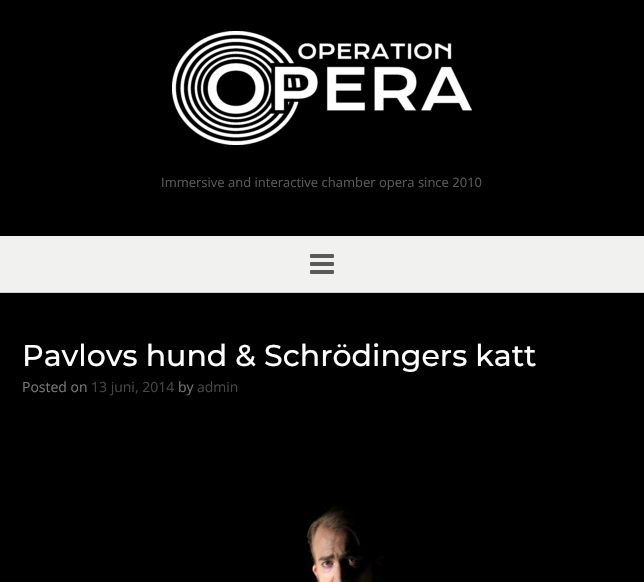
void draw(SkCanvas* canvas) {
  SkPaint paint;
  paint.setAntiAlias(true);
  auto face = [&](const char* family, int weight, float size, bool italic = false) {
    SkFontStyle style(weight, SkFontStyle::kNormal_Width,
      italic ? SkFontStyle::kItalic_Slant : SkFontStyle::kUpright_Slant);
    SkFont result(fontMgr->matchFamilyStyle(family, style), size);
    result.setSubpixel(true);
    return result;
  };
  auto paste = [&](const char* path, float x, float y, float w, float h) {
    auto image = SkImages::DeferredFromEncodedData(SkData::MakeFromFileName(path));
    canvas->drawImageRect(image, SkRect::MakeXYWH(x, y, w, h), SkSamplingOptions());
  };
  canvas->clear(0xff000000);
  paste("img/1.png", 172, 31, 300, 114);
  paint.setColor(0xfff1f1f0);
  canvas->drawRect(SkRect::MakeXYWH(0, 236, 644, 56), paint);
  paint.setColor(0xffcacfd0);
  canvas->drawRect(SkRect::MakeXYWH(0, 292, 644, 1), paint);
  paste("img/2.png", 310, 254, 24, 20);
  paste("img/3.png", 306, 506, 78, 76);
  auto f0 = face("Open Sans", 400, 13);
  paint.setColor(0xff5a5a5a);
  canvas->drawString("Immersive and interactive chamber opera since 2010", 161, 187, f0, paint);
  auto f1 = face("Montserrat", 500, 30);
  paint.setColor(0xffffffff);
  canvas->drawString("Pavlovs hund & Schrödingers katt", 22, 366, f1, paint);
  auto f2 = face("Open Sans", 400, 14);
  paint.setColor(0xff777777);
  canvas->drawString("Posted on", 22, 392, f2, paint);
  paint.setColor(0xff474747);
  canvas->drawString("13 juni, 2014", 91, 392, f2, paint);
  paint.setColor(0xff777777);
  canvas->drawString("by", 178, 392, f2, paint);
  paint.setColor(0xff474747);
  canvas->drawString("admin", 197, 392, f2, paint);
}
